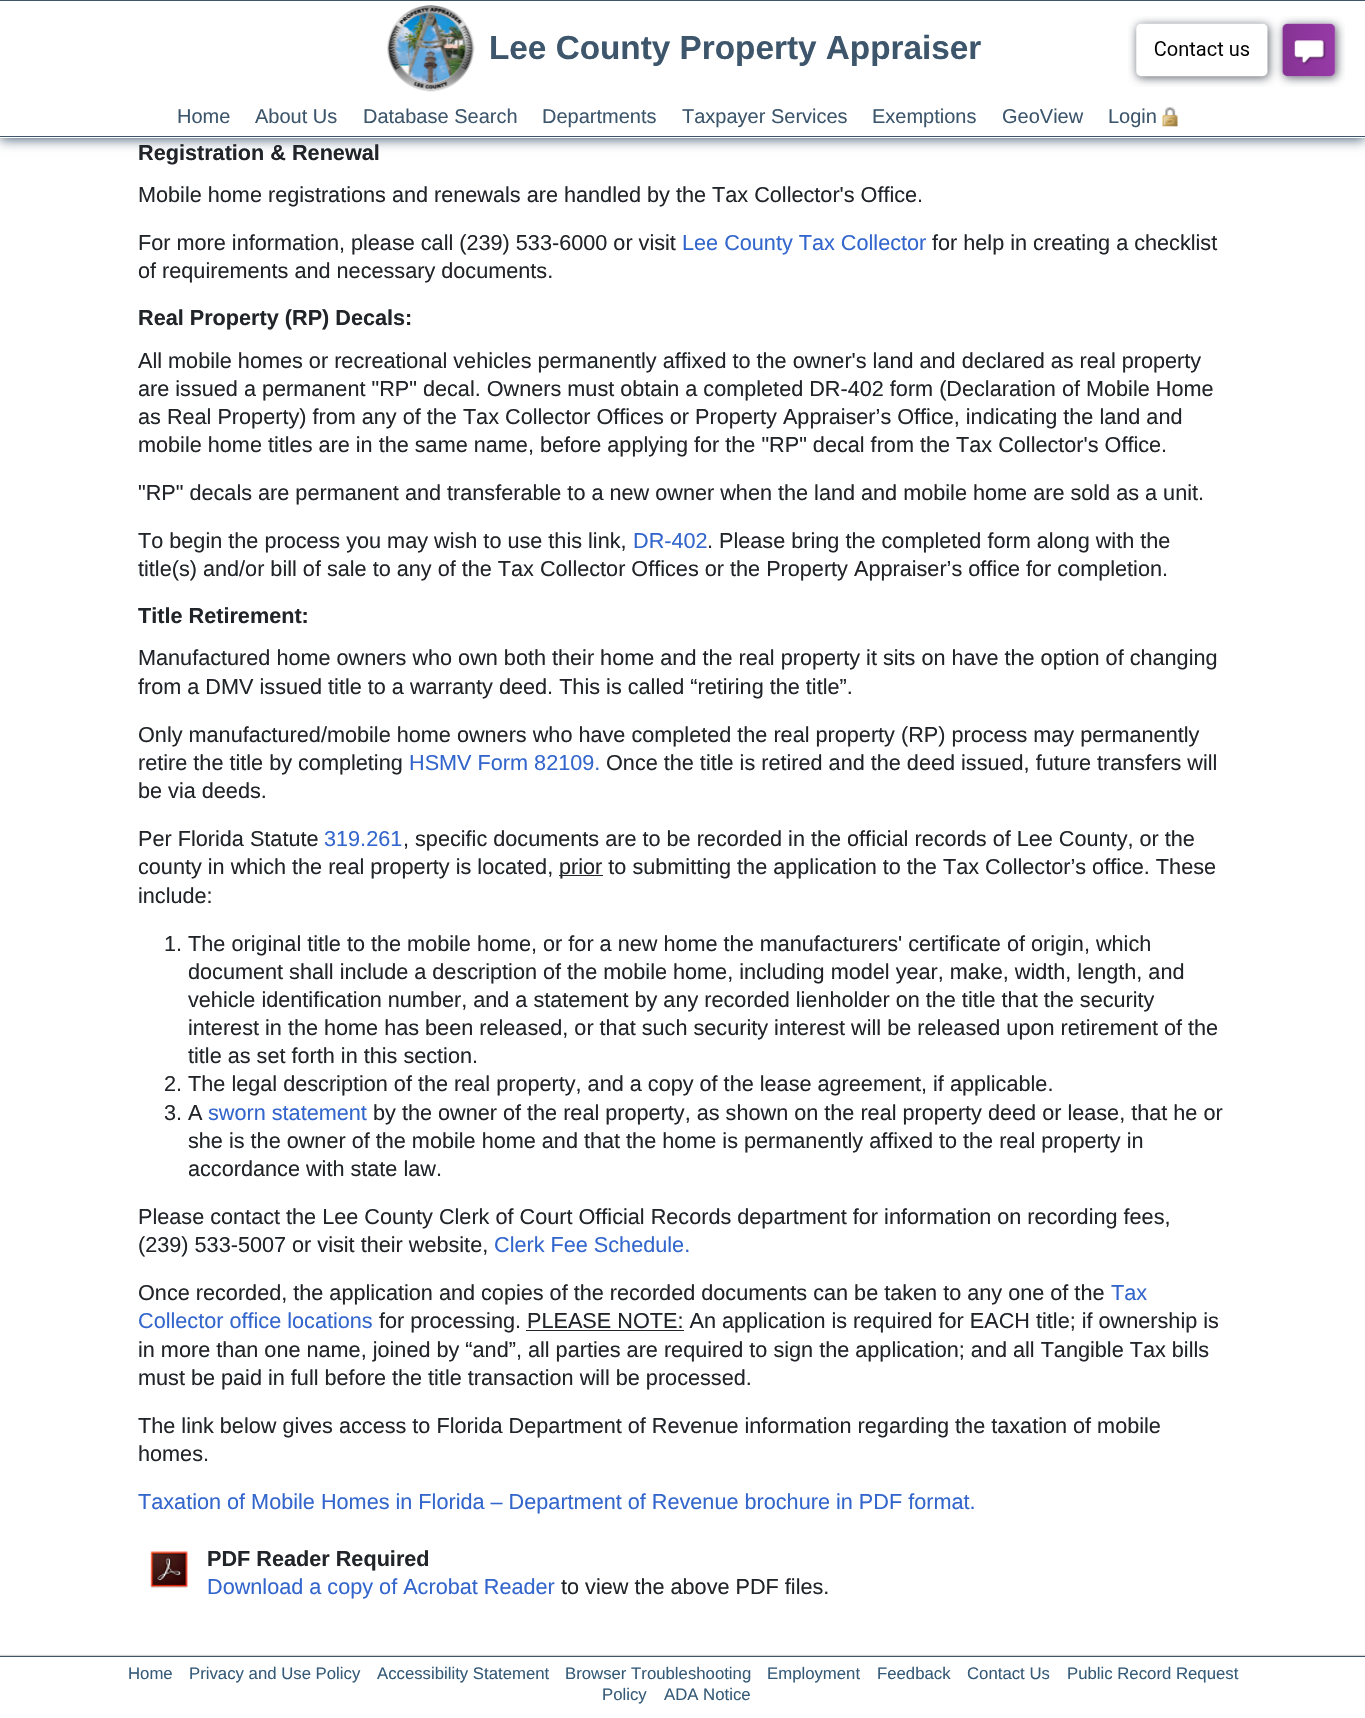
void draw(SkCanvas* canvas) {
  SkPaint paint;
  paint.setAntiAlias(true);
  auto face = [&](const char* family, int weight, float size, bool italic = false) {
    SkFontStyle style(weight, SkFontStyle::kNormal_Width,
      italic ? SkFontStyle::kItalic_Slant : SkFontStyle::kUpright_Slant);
    SkFont result(fontMgr->matchFamilyStyle(family, style), size);
    result.setSubpixel(true);
    return result;
  };
  auto paste = [&](const char* path, float x, float y, float w, float h) {
    auto image = SkImages::DeferredFromEncodedData(SkData::MakeFromFileName(path));
    canvas->drawImageRect(image, SkRect::MakeXYWH(x, y, w, h), SkSamplingOptions());
  };
  canvas->clear(0xffffffff);
  paint.setColor(0xff3d566c);
  paint.setMaskFilter(SkMaskFilter::MakeBlur(kNormal_SkBlurStyle, 6));
  canvas->drawRect(SkRect::MakeXYWH(0, 1, 1365, 138), paint);
  paint.setMaskFilter(nullptr);
  paint.setColor(0xffffffff);
  canvas->drawRect(SkRect::MakeXYWH(0, 1, 1365, 137), paint);
  paste("img/1.png", 1128, 16, 217, 71);
  paint.setColor(0xff3d566c);
  canvas->drawRect(SkRect::MakeXYWH(0, 0, 1365, 1), paint);
  canvas->drawRect(SkRect::MakeXYWH(0, 136, 1365, 1), paint);
  paste("img/2.png", 387, 5, 88, 87);
  paste("img/3.png", 1162, 107, 16, 20);
  paint.setColor(0xff212529);
  canvas->drawRect(SkRect::MakeXYWH(559, 875, 44, 1), paint);
  canvas->drawRect(SkRect::MakeXYWH(526, 1330, 158, 1), paint);
  paste("img/4.png", 150, 1551, 38, 37);
  paint.setColor(0xffd3d3d3);
  paint.setMaskFilter(SkMaskFilter::MakeBlur(kNormal_SkBlurStyle, 0.5f));
  canvas->drawRect(SkRect::MakeXYWH(0, 1655, 1365, 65), paint);
  paint.setMaskFilter(nullptr);
  paint.setColor(0xffffffff);
  canvas->drawRect(SkRect::MakeXYWH(0, 1657, 1365, 61), paint);
  paint.setColor(0xff3d566c);
  canvas->drawRect(SkRect::MakeXYWH(0, 1656, 1365, 1), paint);
  auto f0 = face("Liberation Sans", 700, 33.3f);
  canvas->drawString("Lee County Property Appraiser", 489, 59, f0, paint);
  auto f1 = face("Liberation Sans", 400, 20);
  {
    const struct { const char* s; float x, y; } items[] = {
      {"Home", 177, 123},
      {"About Us", 255, 123},
      {"Database Search", 363, 123},
      {"Departments", 542, 123},
      {"Taxpayer Services", 682, 123},
      {"Exemptions", 872, 123},
      {"GeoView", 1002, 123},
      {"Login", 1108, 123},
    };
    for (auto [s, x, y] : items) {
      canvas->drawString(s, x, y, f1, paint);
    }
  }
  auto f2 = face("Liberation Sans", 700, 21.65f);
  paint.setColor(0xff212529);
  canvas->drawString("Registration & Renewal", 138, 160, f2, paint);
  auto f3 = face("Liberation Sans", 400, 21.65f);
  canvas->drawString("Mobile home registrations and renewals are handled by the Tax Collector's Office.", 138, 202, f3, paint);
  canvas->drawString("For more information, please call (239) 533-6000 or visit", 138, 250, f3, paint);
  paint.setColor(0xff3366cc);
  canvas->drawString("Lee County Tax Collector", 682, 250, f3, paint);
  paint.setColor(0xff212529);
  canvas->drawString("for help in creating a checklist", 932, 250, f3, paint);
  canvas->drawString("of requirements and necessary documents.", 138, 278, f3, paint);
  canvas->drawString("Real Property (RP) Decals:", 138, 325, f2, paint);
  {
    const struct { const char* s; float x, y; } items[] = {
      {"All mobile homes or recreational vehicles permanently affixed to the owner's land and declared as real property", 138, 368},
      {"are issued a permanent \"RP\" decal. Owners must obtain a completed DR-402 form (Declaration of Mobile Home", 138, 396},
      {"as Real Property) from any of the Tax Collector Offices or Property Appraiser’s Office, indicating the land and", 138, 424},
      {"mobile home titles are in the same name, before applying for the \"RP\" decal from the Tax Collector's Office.", 138, 452},
      {"\"RP\" decals are permanent and transferable to a new owner when the land and mobile home are sold as a unit.", 138, 500},
      {"To begin the process you may wish to use this link,", 138, 548},
    };
    for (auto [s, x, y] : items) {
      canvas->drawString(s, x, y, f3, paint);
    }
  }
  paint.setColor(0xff3366cc);
  canvas->drawString("DR-402", 633, 548, f3, paint);
  paint.setColor(0xff212529);
  canvas->drawString(". Please bring the completed form along with the", 707, 548, f3, paint);
  canvas->drawString("title(s) and/or bill of sale to any of the Tax Collector Offices or the Property Appraiser’s office for completion.", 138, 576, f3, paint);
  canvas->drawString("Title Retirement:", 138, 623, f2, paint);
  {
    const struct { const char* s; float x, y; } items[] = {
      {"Manufactured home owners who own both their home and the real property it sits on have the option of changing", 138, 665},
      {"from a DMV issued title to a warranty deed. This is called “retiring the title”.", 138, 694},
      {"Only manufactured/mobile home owners who have completed the real property (RP) process may permanently", 138, 742},
      {"retire the title by completing", 138, 770},
    };
    for (auto [s, x, y] : items) {
      canvas->drawString(s, x, y, f3, paint);
    }
  }
  paint.setColor(0xff3366cc);
  canvas->drawString("HSMV Form 82109.", 409, 770, f3, paint);
  paint.setColor(0xff212529);
  {
    const struct { const char* s; float x, y; } items[] = {
      {"Once the title is retired and the deed issued, future transfers will", 606, 770},
      {"be via deeds.", 138, 798},
      {"Per Florida Statute", 138, 846},
    };
    for (auto [s, x, y] : items) {
      canvas->drawString(s, x, y, f3, paint);
    }
  }
  paint.setColor(0xff3366cc);
  canvas->drawString("319.261", 324, 846, f3, paint);
  paint.setColor(0xff212529);
  {
    const struct { const char* s; float x, y; } items[] = {
      {", specific documents are to be recorded in the official records of Lee County, or the", 403, 846},
      {"county in which the real property is located,", 138, 874},
      {"prior to submitting the application to the Tax Collector’s office. These", 559, 874},
      {"include:", 138, 903},
      {"1. The original title to the mobile home, or for a new home the manufacturers' certificate of origin, which", 164, 951},
      {"document shall include a description of the mobile home, including model year, make, width, length, and", 188, 979},
      {"vehicle identification number, and a statement by any recorded lienholder on the title that the security", 188, 1007},
      {"interest in the home has been released, or that such security interest will be released upon retirement of the", 188, 1035},
      {"title as set forth in this section.", 188, 1063},
      {"2. The legal description of the real property, and a copy of the lease agreement, if applicable.", 164, 1091},
      {"3. A", 164, 1120},
    };
    for (auto [s, x, y] : items) {
      canvas->drawString(s, x, y, f3, paint);
    }
  }
  paint.setColor(0xff3366cc);
  canvas->drawString("sworn statement", 208, 1120, f3, paint);
  paint.setColor(0xff212529);
  {
    const struct { const char* s; float x, y; } items[] = {
      {"by the owner of the real property, as shown on the real property deed or lease, that he or", 373, 1120},
      {"she is the owner of the mobile home and that the home is permanently affixed to the real property in", 188, 1148},
      {"accordance with state law.", 188, 1176},
      {"Please contact the Lee County Clerk of Court Official Records department for information on recording fees,", 138, 1224},
      {"(239) 533-5007 or visit their website,", 138, 1252},
    };
    for (auto [s, x, y] : items) {
      canvas->drawString(s, x, y, f3, paint);
    }
  }
  paint.setColor(0xff3366cc);
  canvas->drawString("Clerk Fee Schedule.", 494, 1252, f3, paint);
  paint.setColor(0xff212529);
  canvas->drawString("Once recorded, the application and copies of the recorded documents can be taken to any one of the", 138, 1300, f3, paint);
  paint.setColor(0xff3366cc);
  canvas->drawString("Tax", 1111, 1300, f3, paint);
  canvas->drawString("Collector office locations", 138, 1328, f3, paint);
  paint.setColor(0xff212529);
  {
    const struct { const char* s; float x, y; } items[] = {
      {"for processing. PLEASE NOTE: An application is required for EACH title; if ownership is", 379, 1328},
      {"in more than one name, joined by “and”, all parties are required to sign the application; and all Tangible Tax bills", 138, 1357},
      {"must be paid in full before the title transaction will be processed.", 138, 1385},
      {"The link below gives access to Florida Department of Revenue information regarding the taxation of mobile", 138, 1433},
      {"homes.", 138, 1461},
    };
    for (auto [s, x, y] : items) {
      canvas->drawString(s, x, y, f3, paint);
    }
  }
  paint.setColor(0xff3366cc);
  canvas->drawString("Taxation of Mobile Homes in Florida – Department of Revenue brochure in PDF format.", 138, 1509, f3, paint);
  paint.setColor(0xff212529);
  canvas->drawString("PDF Reader Required", 207, 1566, f2, paint);
  paint.setColor(0xff3366cc);
  canvas->drawString("Download a copy of Acrobat Reader", 207, 1594, f3, paint);
  paint.setColor(0xff212529);
  canvas->drawString("to view the above PDF files.", 561, 1594, f3, paint);
  auto f4 = face("Liberation Sans", 400, 16.75f);
  paint.setColor(0xff365b78);
  {
    const struct { const char* s; float x, y; } items[] = {
      {"Home", 128, 1679},
      {"Privacy and Use Policy", 189, 1679},
      {"Accessibility Statement", 377, 1679},
      {"Browser Troubleshooting", 565, 1679},
      {"Employment", 767, 1679},
      {"Feedback", 877, 1679},
      {"Contact Us", 967, 1679},
      {"Public Record Request", 1067, 1679},
      {"Policy", 602, 1700},
      {"ADA Notice", 664, 1700},
    };
    for (auto [s, x, y] : items) {
      canvas->drawString(s, x, y, f4, paint);
    }
  }
}
